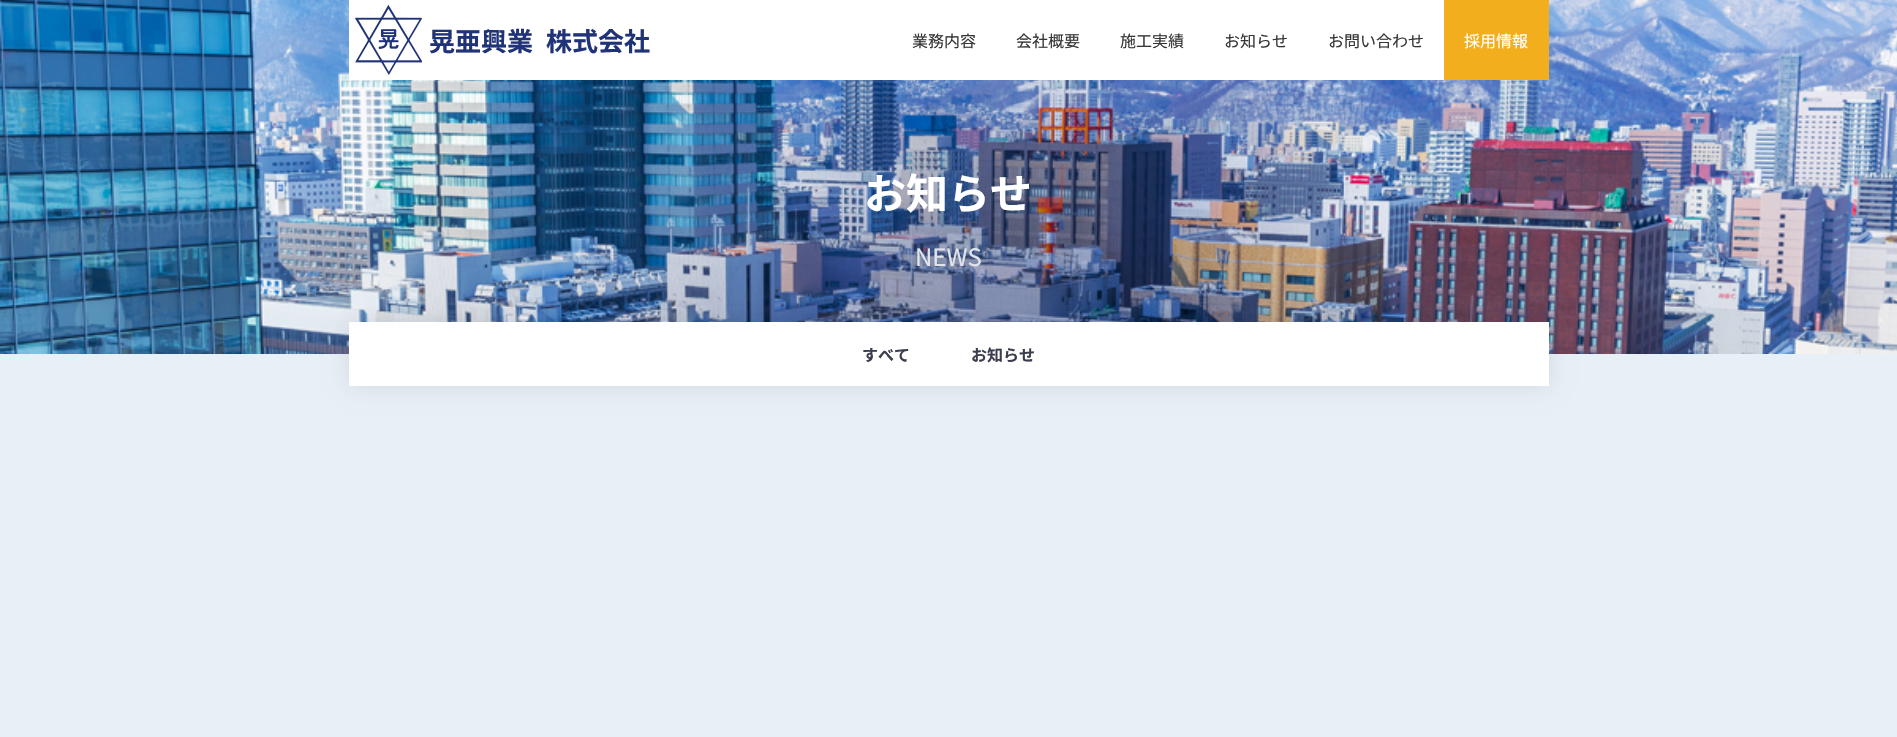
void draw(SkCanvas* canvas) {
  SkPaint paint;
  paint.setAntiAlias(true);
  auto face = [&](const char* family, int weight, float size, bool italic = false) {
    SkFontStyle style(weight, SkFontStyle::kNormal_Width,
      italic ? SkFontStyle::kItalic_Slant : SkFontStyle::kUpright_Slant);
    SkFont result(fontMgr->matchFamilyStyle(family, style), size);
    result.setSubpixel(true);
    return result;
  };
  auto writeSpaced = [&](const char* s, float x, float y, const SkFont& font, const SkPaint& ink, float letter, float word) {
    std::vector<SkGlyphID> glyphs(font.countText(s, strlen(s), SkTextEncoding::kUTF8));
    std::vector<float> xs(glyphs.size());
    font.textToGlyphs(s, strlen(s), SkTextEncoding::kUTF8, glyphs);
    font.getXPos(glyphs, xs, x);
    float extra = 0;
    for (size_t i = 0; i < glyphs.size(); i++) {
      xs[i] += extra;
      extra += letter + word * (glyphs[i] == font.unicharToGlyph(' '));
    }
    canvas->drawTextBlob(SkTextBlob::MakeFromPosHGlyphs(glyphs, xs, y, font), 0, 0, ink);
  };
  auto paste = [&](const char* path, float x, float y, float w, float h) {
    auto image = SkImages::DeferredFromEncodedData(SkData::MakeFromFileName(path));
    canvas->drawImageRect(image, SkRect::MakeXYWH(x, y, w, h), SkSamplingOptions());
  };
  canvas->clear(0xffffffff);
  paste("img/2.png", 0, 0, 1897, 354);
  paint.setColor(0xffffffff);
  canvas->drawRect(SkRect::MakeXYWH(349, 0, 1095, 80), paint);
  paste("img/1.png", 355, 5, 67, 70);
  paint.setColor(0xfff2ae1d);
  canvas->drawRect(SkRect::MakeXYWH(1444, 0, 105, 80), paint);
  paint.setColor(0xffe8f0f7);
  canvas->drawRect(SkRect::MakeXYWH(0, 354, 1897, 383), paint);
  paint.setColor(0x1a000000);
  paint.setMaskFilter(SkMaskFilter::MakeBlur(kNormal_SkBlurStyle, 10));
  canvas->drawRect(SkRect::MakeXYWH(349, 322, 1200, 64), paint);
  paint.setMaskFilter(nullptr);
  paint.setColor(0xffffffff);
  canvas->drawRect(SkRect::MakeXYWH(349, 322, 1200, 64), paint);
  auto f0 = face("Noto Sans JP", 700, 26);
  paint.setColor(0xff203378);
  writeSpaced("晃亜興業 株式会社", 429, 51, f0, paint, 0, 7);
  auto f1 = face("Noto Sans JP", 400, 16);
  paint.setColor(0xff353535);
  {
    const struct { const char* s; float x, y; } items[] = {
      {"業務内容", 912, 47},
      {"会社概要", 1016, 47},
      {"施工実績", 1120, 47},
      {"お知らせ", 1224, 47},
      {"お問い合わせ", 1328, 47},
    };
    for (auto [s, x, y] : items) {
      canvas->drawString(s, x, y, f1, paint);
    }
  }
  paint.setColor(0xffffffff);
  canvas->drawString("採用情報", 1464, 47, f1, paint);
  auto f2 = face("Noto Sans JP", 700, 42);
  canvas->drawString("お知らせ", 864, 209, f2, paint);
  auto f3 = face("Noto Sans JP", 400, 24);
  paint.setColor(0xffe1e4eb);
  canvas->drawString("NEWS", 915, 266, f3, paint);
  auto f4 = face("Noto Sans JP", 700, 16);
  paint.setColor(0xff3a3e4d);
  canvas->drawString("すべて", 862, 361, f4, paint);
  canvas->drawString("お知らせ", 971, 361, f4, paint);
}
